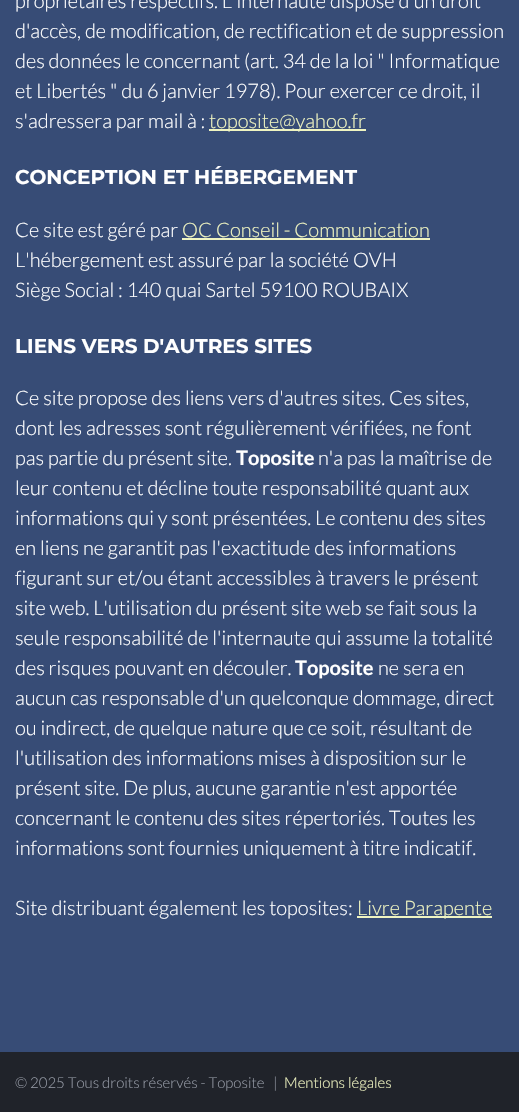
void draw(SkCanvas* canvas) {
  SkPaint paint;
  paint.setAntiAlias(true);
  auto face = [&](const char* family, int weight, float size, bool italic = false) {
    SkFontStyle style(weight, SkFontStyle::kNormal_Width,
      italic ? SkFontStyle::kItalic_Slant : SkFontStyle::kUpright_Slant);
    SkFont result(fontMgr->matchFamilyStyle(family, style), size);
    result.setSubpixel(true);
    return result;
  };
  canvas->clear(0xff374c76);
  {
    const struct { float x, y, w, h; SkColor color; } items[] = {
      {209, 129, 157, 2, 0xffeff4c1},
      {182, 238, 248, 2, 0xffeff4c1},
      {357, 916, 135, 2, 0xffeff4c1},
      {0, 1052, 519, 60, 0xff20232a},
    };
    for (auto [x, y, w, h, color] : items) {
      paint.setColor(color);
      canvas->drawRect(SkRect::MakeXYWH(x, y, w, h), paint);
    }
  }
  auto f0 = face("Lato", 300, 20);
  paint.setColor(0xffffffff);
  {
    const struct { const char* s; float x, y; } items[] = {
      {"propriétaires respectifs. L'internaute dispose d'un droit", 15, 8},
      {"d'accès, de modification, de rectification et de suppression", 15, 38},
      {"des données le concernant (art. 34 de la loi \" Informatique", 15, 68},
      {"et Libertés \" du 6 janvier 1978). Pour exercer ce droit, il", 15, 98},
      {"s'adressera par mail à :", 15, 128},
    };
    for (auto [s, x, y] : items) {
      canvas->drawString(s, x, y, f0, paint);
    }
  }
  paint.setColor(0xffeff4c1);
  canvas->drawString("toposite@yahoo.fr", 209, 128, f0, paint);
  auto f1 = face("Montserrat", 700, 20);
  paint.setColor(0xffffffff);
  canvas->drawString("CONCEPTION ET HÉBERGEMENT", 15, 184, f1, paint);
  canvas->drawString("Ce site est géré par", 15, 237, f0, paint);
  paint.setColor(0xffeff4c1);
  canvas->drawString("OC Conseil - Communication", 182, 237, f0, paint);
  paint.setColor(0xffffffff);
  canvas->drawString("L'hébergement est assuré par la société OVH", 15, 267, f0, paint);
  canvas->drawString("Siège Social : 140 quai Sartel 59100 ROUBAIX", 15, 297, f0, paint);
  canvas->drawString("LIENS VERS D'AUTRES SITES", 15, 353, f1, paint);
  {
    const struct { const char* s; float x, y; } items[] = {
      {"Ce site propose des liens vers d'autres sites. Ces sites,", 15, 405},
      {"dont les adresses sont régulièrement vérifiées, ne font", 15, 435},
      {"pas partie du présent site.", 15, 465},
    };
    for (auto [s, x, y] : items) {
      canvas->drawString(s, x, y, f0, paint);
    }
  }
  auto f2 = face("Lato", 700, 20);
  canvas->drawString("Toposite", 236, 465, f2, paint);
  {
    const struct { const char* s; float x, y; } items[] = {
      {"n'a pas la maîtrise de", 318, 465},
      {"leur contenu et décline toute responsabilité quant aux", 15, 495},
      {"informations qui y sont présentées. Le contenu des sites", 15, 525},
      {"en liens ne garantit pas l'exactitude des informations", 15, 555},
      {"figurant sur et/ou étant accessibles à travers le présent", 15, 585},
      {"site web. L'utilisation du présent site web se fait sous la", 15, 615},
      {"seule responsabilité de l'internaute qui assume la totalité", 15, 645},
      {"des risques pouvant en découler.", 15, 675},
    };
    for (auto [s, x, y] : items) {
      canvas->drawString(s, x, y, f0, paint);
    }
  }
  canvas->drawString("Toposite", 295, 675, f2, paint);
  {
    const struct { const char* s; float x, y; } items[] = {
      {"ne sera en", 378, 675},
      {"aucun cas responsable d'un quelconque dommage, direct", 15, 705},
      {"ou indirect, de quelque nature que ce soit, résultant de", 15, 735},
      {"l'utilisation des informations mises à disposition sur le", 15, 765},
      {"présent site. De plus, aucune garantie n'est apportée", 15, 795},
      {"concernant le contenu des sites répertoriés. Toutes les", 15, 825},
      {"informations sont fournies uniquement à titre indicatif.", 15, 855},
      {"Site distribuant également les toposites:", 15, 915},
    };
    for (auto [s, x, y] : items) {
      canvas->drawString(s, x, y, f0, paint);
    }
  }
  paint.setColor(0xffeff4c1);
  canvas->drawString("Livre Parapente", 357, 915, f0, paint);
  auto f3 = face("Lato", 300, 15);
  paint.setColor(0xff9499a4);
  canvas->drawString("© 2025 Tous droits réservés - Toposite", 15, 1088, f3, paint);
  canvas->drawString("|", 273, 1088, f3, paint);
  paint.setColor(0xffeff4c1);
  canvas->drawString("Mentions légales", 284, 1088, f3, paint);
}
